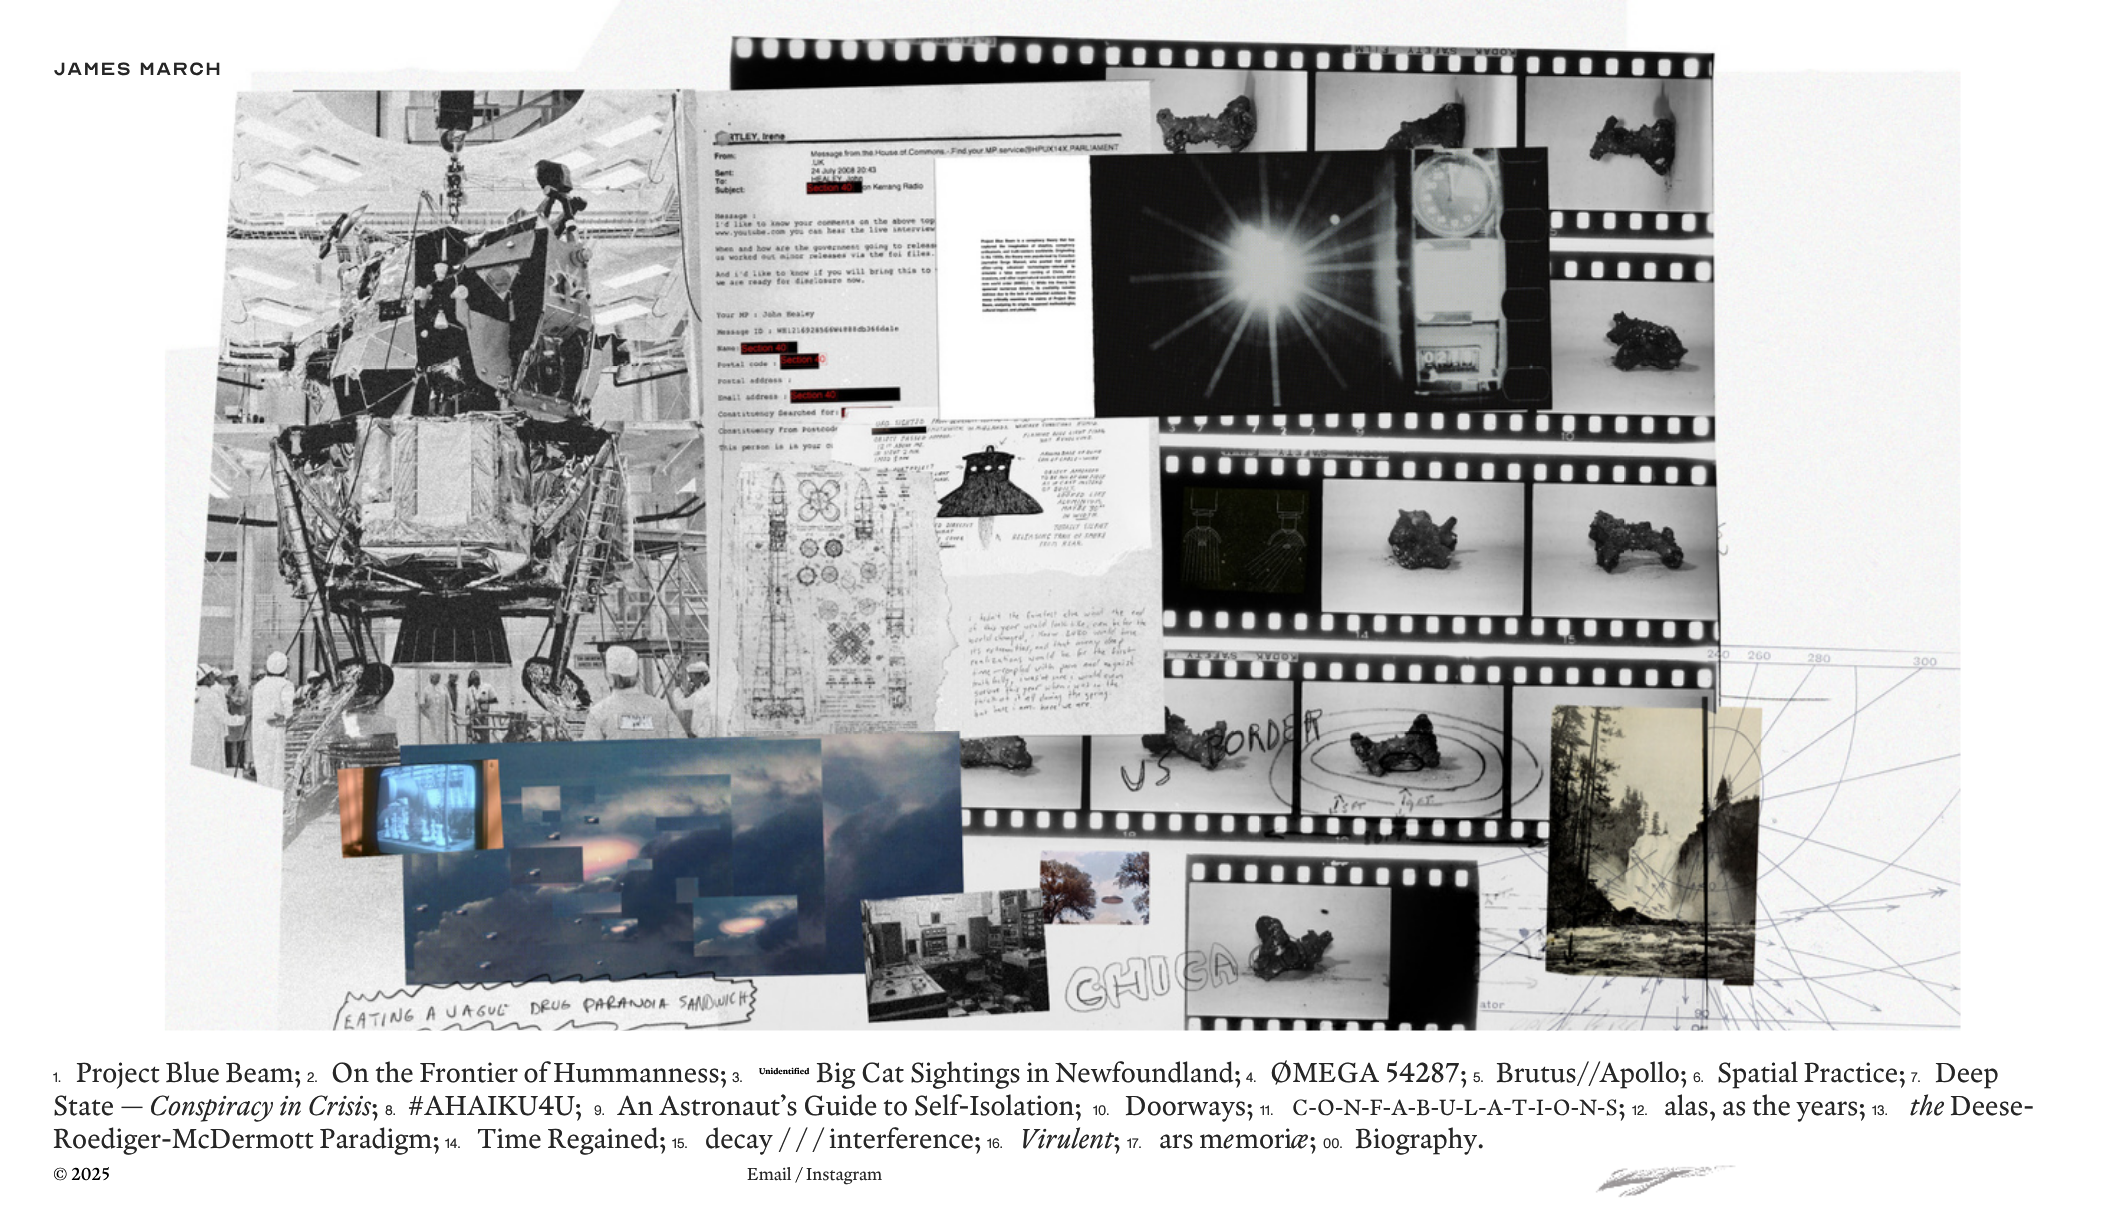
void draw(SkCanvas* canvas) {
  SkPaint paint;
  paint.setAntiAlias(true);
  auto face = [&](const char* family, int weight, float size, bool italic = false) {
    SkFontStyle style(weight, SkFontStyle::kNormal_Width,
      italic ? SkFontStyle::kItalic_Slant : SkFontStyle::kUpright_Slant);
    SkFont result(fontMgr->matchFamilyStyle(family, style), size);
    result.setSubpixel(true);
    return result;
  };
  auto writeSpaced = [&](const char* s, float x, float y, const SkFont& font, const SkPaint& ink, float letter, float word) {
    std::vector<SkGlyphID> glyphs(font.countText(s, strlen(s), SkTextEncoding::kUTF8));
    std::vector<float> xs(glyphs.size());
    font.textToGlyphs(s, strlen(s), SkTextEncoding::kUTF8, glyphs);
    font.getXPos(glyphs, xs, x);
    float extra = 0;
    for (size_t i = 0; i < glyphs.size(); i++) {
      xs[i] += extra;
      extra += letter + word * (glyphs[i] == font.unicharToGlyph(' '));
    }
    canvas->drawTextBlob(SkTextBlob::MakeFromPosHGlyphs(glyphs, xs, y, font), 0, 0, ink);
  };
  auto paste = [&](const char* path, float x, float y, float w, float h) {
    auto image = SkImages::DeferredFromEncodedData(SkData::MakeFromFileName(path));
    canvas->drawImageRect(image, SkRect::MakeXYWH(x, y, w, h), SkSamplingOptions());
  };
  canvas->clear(0xffffffff);
  paste("img/1.png", 164, 0, 1797, 1031);
  paste("img/2.png", 0, 1030, 2125, 194);
  auto f0 = face("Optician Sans", 400, 24.75f);
  paint.setColor(0xff262626);
  writeSpaced("James March", 53, 75, f0, paint, 0.9f, 0);
  auto f1 = face("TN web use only", 400, 27.7f);
  canvas->drawString("Project Blue Beam;", 76, 1082, f1, paint);
  canvas->drawString("On the Frontier of Hummanness;", 331, 1082, f1, paint);
  auto f2 = face("TN web use only", 700, 8.25f);
  paint.setColor(0xff000000);
  canvas->drawString("Unidentified", 759, 1074, f2, paint);
  paint.setColor(0xff262626);
  {
    const struct { const char* s; float x, y; } items[] = {
      {"Big Cat Sightings in Newfoundland;", 816, 1082},
      {"ØMEGA 54287;", 1270, 1082},
      {"Brutus//Apollo;", 1496, 1082},
      {"Spatial Practice;", 1717, 1082},
      {"Deep", 1935, 1082},
    };
    for (auto [s, x, y] : items) {
      canvas->drawString(s, x, y, f1, paint);
    }
  }
  auto f3 = face("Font", 400, 14);
  {
    const struct { const char* s; float x, y; } items[] = {
      {"1.", 53, 1082},
      {"2.", 307, 1082},
      {"3.", 732, 1082},
      {"4.", 1246, 1082},
      {"5.", 1473, 1082},
      {"6.", 1693, 1082},
      {"7.", 1911, 1082},
    };
    for (auto [s, x, y] : items) {
      canvas->drawString(s, x, y, f3, paint);
    }
  }
  canvas->drawString("State —", 53, 1115, f1, paint);
  auto f4 = face("TN web use only", 400, 27.7f, true);
  canvas->drawString("Conspiracy in Crisis", 149, 1115, f4, paint);
  canvas->drawString(";", 371, 1115, f1, paint);
  canvas->drawString("8.", 385, 1115, f3, paint);
  canvas->drawString("#AHAIKU4U;", 408, 1115, f1, paint);
  canvas->drawString("9.", 594, 1115, f3, paint);
  canvas->drawString("An Astronaut’s Guide to Self-Isolation;", 617, 1115, f1, paint);
  canvas->drawString("10.", 1093, 1115, f3, paint);
  canvas->drawString("Doorways;", 1125, 1115, f1, paint);
  canvas->drawString("11.", 1260, 1115, f3, paint);
  auto f5 = face("TN web use only", 400, 22.1f);
  canvas->drawString("C-O-N-F-A-B-U-L-A-T-I-O-N-S", 1292, 1115, f5, paint);
  canvas->drawString(";", 1618, 1115, f1, paint);
  canvas->drawString("12.", 1632, 1115, f3, paint);
  canvas->drawString("alas, as the years;", 1664, 1115, f1, paint);
  canvas->drawString("13.", 1872, 1115, f3, paint);
  canvas->drawString("the", 1910, 1115, f4, paint);
  canvas->drawString("Deese-", 1950, 1115, f1, paint);
  canvas->drawString("Roediger-McDermott Paradigm;", 53, 1148, f1, paint);
  canvas->drawString("14.", 445, 1148, f3, paint);
  canvas->drawString("Time Regained;", 477, 1148, f1, paint);
  canvas->drawString("15.", 672, 1148, f3, paint);
  canvas->drawString("decay / / / interference;", 705, 1148, f1, paint);
  canvas->drawString("16.", 987, 1148, f3, paint);
  canvas->drawString("Virulent", 1019, 1148, f4, paint);
  canvas->drawString(";", 1113, 1148, f1, paint);
  canvas->drawString("17.", 1127, 1148, f3, paint);
  canvas->drawString("ars m", 1159, 1148, f1, paint);
  canvas->drawString("e", 1223, 1148, f4, paint);
  canvas->drawString("mori", 1235, 1148, f1, paint);
  canvas->drawString("æ", 1291, 1148, f4, paint);
  canvas->drawString(";", 1309, 1148, f1, paint);
  canvas->drawString("00.", 1323, 1148, f3, paint);
  canvas->drawString("Biography.", 1355, 1148, f1, paint);
  auto f6 = face("TN web use only", 400, 17.5f);
  paint.setColor(0xff000000);
  canvas->drawString("© 2025", 53, 1180, f6, paint);
  paint.setColor(0xff262626);
  canvas->drawString("Email", 747, 1180, f6, paint);
  paint.setColor(0xff000000);
  canvas->drawString("/", 795, 1180, f6, paint);
  paint.setColor(0xff262626);
  canvas->drawString("Instagram", 806, 1180, f6, paint);
}
